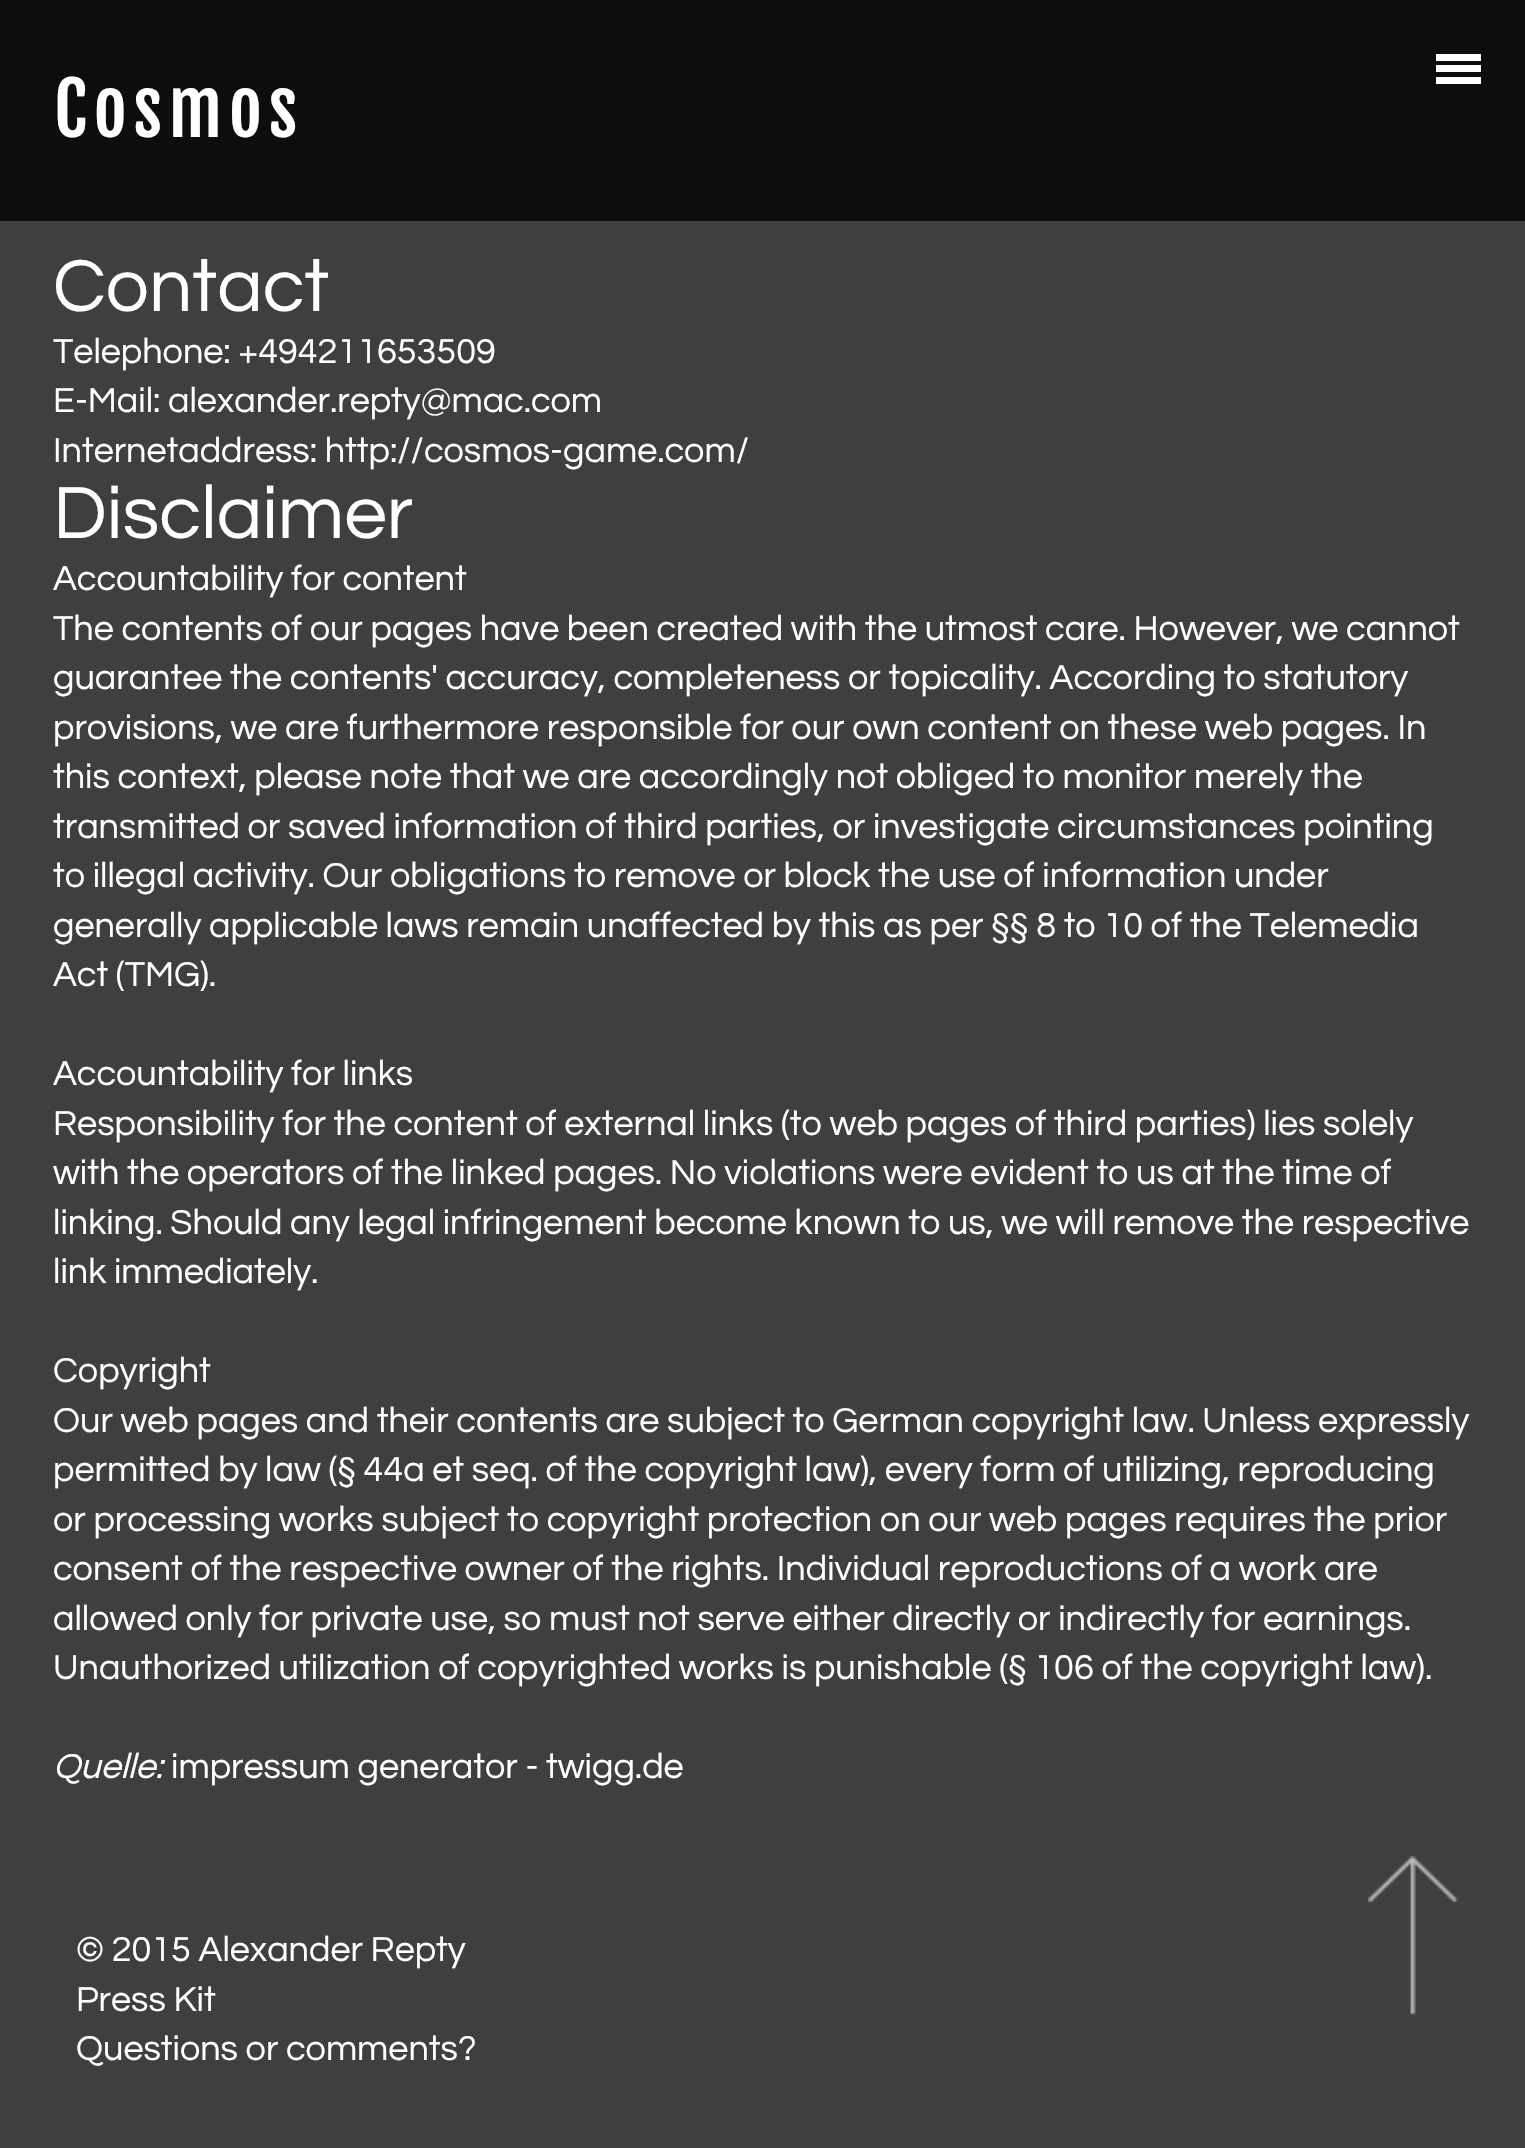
void draw(SkCanvas* canvas) {
  SkPaint paint;
  paint.setAntiAlias(true);
  auto face = [&](const char* family, int weight, float size, bool italic = false) {
    SkFontStyle style(weight, SkFontStyle::kNormal_Width,
      italic ? SkFontStyle::kItalic_Slant : SkFontStyle::kUpright_Slant);
    SkFont result(fontMgr->matchFamilyStyle(family, style), size);
    result.setSubpixel(true);
    return result;
  };
  auto writeSpaced = [&](const char* s, float x, float y, const SkFont& font, const SkPaint& ink, float letter, float word) {
    std::vector<SkGlyphID> glyphs(font.countText(s, strlen(s), SkTextEncoding::kUTF8));
    std::vector<float> xs(glyphs.size());
    font.textToGlyphs(s, strlen(s), SkTextEncoding::kUTF8, glyphs);
    font.getXPos(glyphs, xs, x);
    float extra = 0;
    for (size_t i = 0; i < glyphs.size(); i++) {
      xs[i] += extra;
      extra += letter + word * (glyphs[i] == font.unicharToGlyph(' '));
    }
    canvas->drawTextBlob(SkTextBlob::MakeFromPosHGlyphs(glyphs, xs, y, font), 0, 0, ink);
  };
  auto paste = [&](const char* path, float x, float y, float w, float h) {
    auto image = SkImages::DeferredFromEncodedData(SkData::MakeFromFileName(path));
    canvas->drawImageRect(image, SkRect::MakeXYWH(x, y, w, h), SkSamplingOptions());
  };
  canvas->clear(0xff3f3f3f);
  {
    const struct { float x, y, w, h; SkColor color; } items[] = {
      {0, 0, 1525, 221, 0xcc000000},
      {1436, 54, 45, 7, 0xffffffff},
      {1436, 65, 45, 7, 0xffffffff},
      {1436, 77, 45, 7, 0xffffffff},
    };
    for (auto [x, y, w, h, color] : items) {
      paint.setColor(color);
      canvas->drawRect(SkRect::MakeXYWH(x, y, w, h), paint);
    }
  }
  paste("img/1.png", 1368, 1856, 91, 159);
  auto f0 = face("Fjalla One", 400, 72);
  writeSpaced("Cosmos", 54, 137, f0, paint, 6.75f, 0);
  auto f1 = face("Questrial", 400, 76.5f);
  canvas->drawString("Contact", 53, 311, f1, paint);
  auto f2 = face("Questrial", 400, 36);
  {
    const struct { const char* s; float x, y; } items[] = {
      {"Telephone: +494211653509", 53, 363},
      {"E-Mail: alexander.repty@mac.com", 53, 412},
      {"Internetaddress: http://cosmos-game.com/", 53, 462},
    };
    for (auto [s, x, y] : items) {
      canvas->drawString(s, x, y, f2, paint);
    }
  }
  canvas->drawString("Disclaimer", 53, 538, f1, paint);
  {
    const struct { const char* s; float x, y; } items[] = {
      {"Accountability for content", 53, 590},
      {"The contents of our pages have been created with the utmost care. However, we cannot", 53, 640},
      {"guarantee the contents' accuracy, completeness or topicality. According to statutory", 53, 689},
      {"provisions, we are furthermore responsible for our own content on these web pages. In", 53, 739},
      {"this context, please note that we are accordingly not obliged to monitor merely the", 53, 788},
      {"transmitted or saved information of third parties, or investigate circumstances pointing", 53, 838},
      {"to illegal activity. Our obligations to remove or block the use of information under", 53, 887},
      {"generally applicable laws remain unaffected by this as per §§ 8 to 10 of the Telemedia", 53, 937},
      {"Act (TMG).", 53, 986},
      {"Accountability for links", 53, 1085},
      {"Responsibility for the content of external links (to web pages of third parties) lies solely", 53, 1135},
      {"with the operators of the linked pages. No violations were evident to us at the time of", 53, 1184},
      {"linking. Should any legal infringement become known to us, we will remove the respective", 53, 1234},
      {"link immediately.", 53, 1283},
      {"Copyright", 53, 1382},
      {"Our web pages and their contents are subject to German copyright law. Unless expressly", 53, 1432},
      {"permitted by law (§ 44a et seq. of the copyright law), every form of utilizing, reproducing", 53, 1481},
      {"or processing works subject to copyright protection on our web pages requires the prior", 53, 1531},
      {"consent of the respective owner of the rights. Individual reproductions of a work are", 53, 1580},
      {"allowed only for private use, so must not serve either directly or indirectly for earnings.", 53, 1630},
      {"Unauthorized utilization of copyrighted works is punishable (§ 106 of the copyright law).", 53, 1679},
    };
    for (auto [s, x, y] : items) {
      canvas->drawString(s, x, y, f2, paint);
    }
  }
  auto f3 = face("Questrial", 400, 36, true);
  canvas->drawString("Quelle:", 53, 1778, f3, paint);
  {
    const struct { const char* s; float x, y; } items[] = {
      {"impressum generator - twigg.de", 171, 1778},
      {"© 2015 Alexander Repty", 76, 1961},
      {"Press Kit", 76, 2011},
      {"Questions or comments?", 76, 2060},
    };
    for (auto [s, x, y] : items) {
      canvas->drawString(s, x, y, f2, paint);
    }
  }
}
